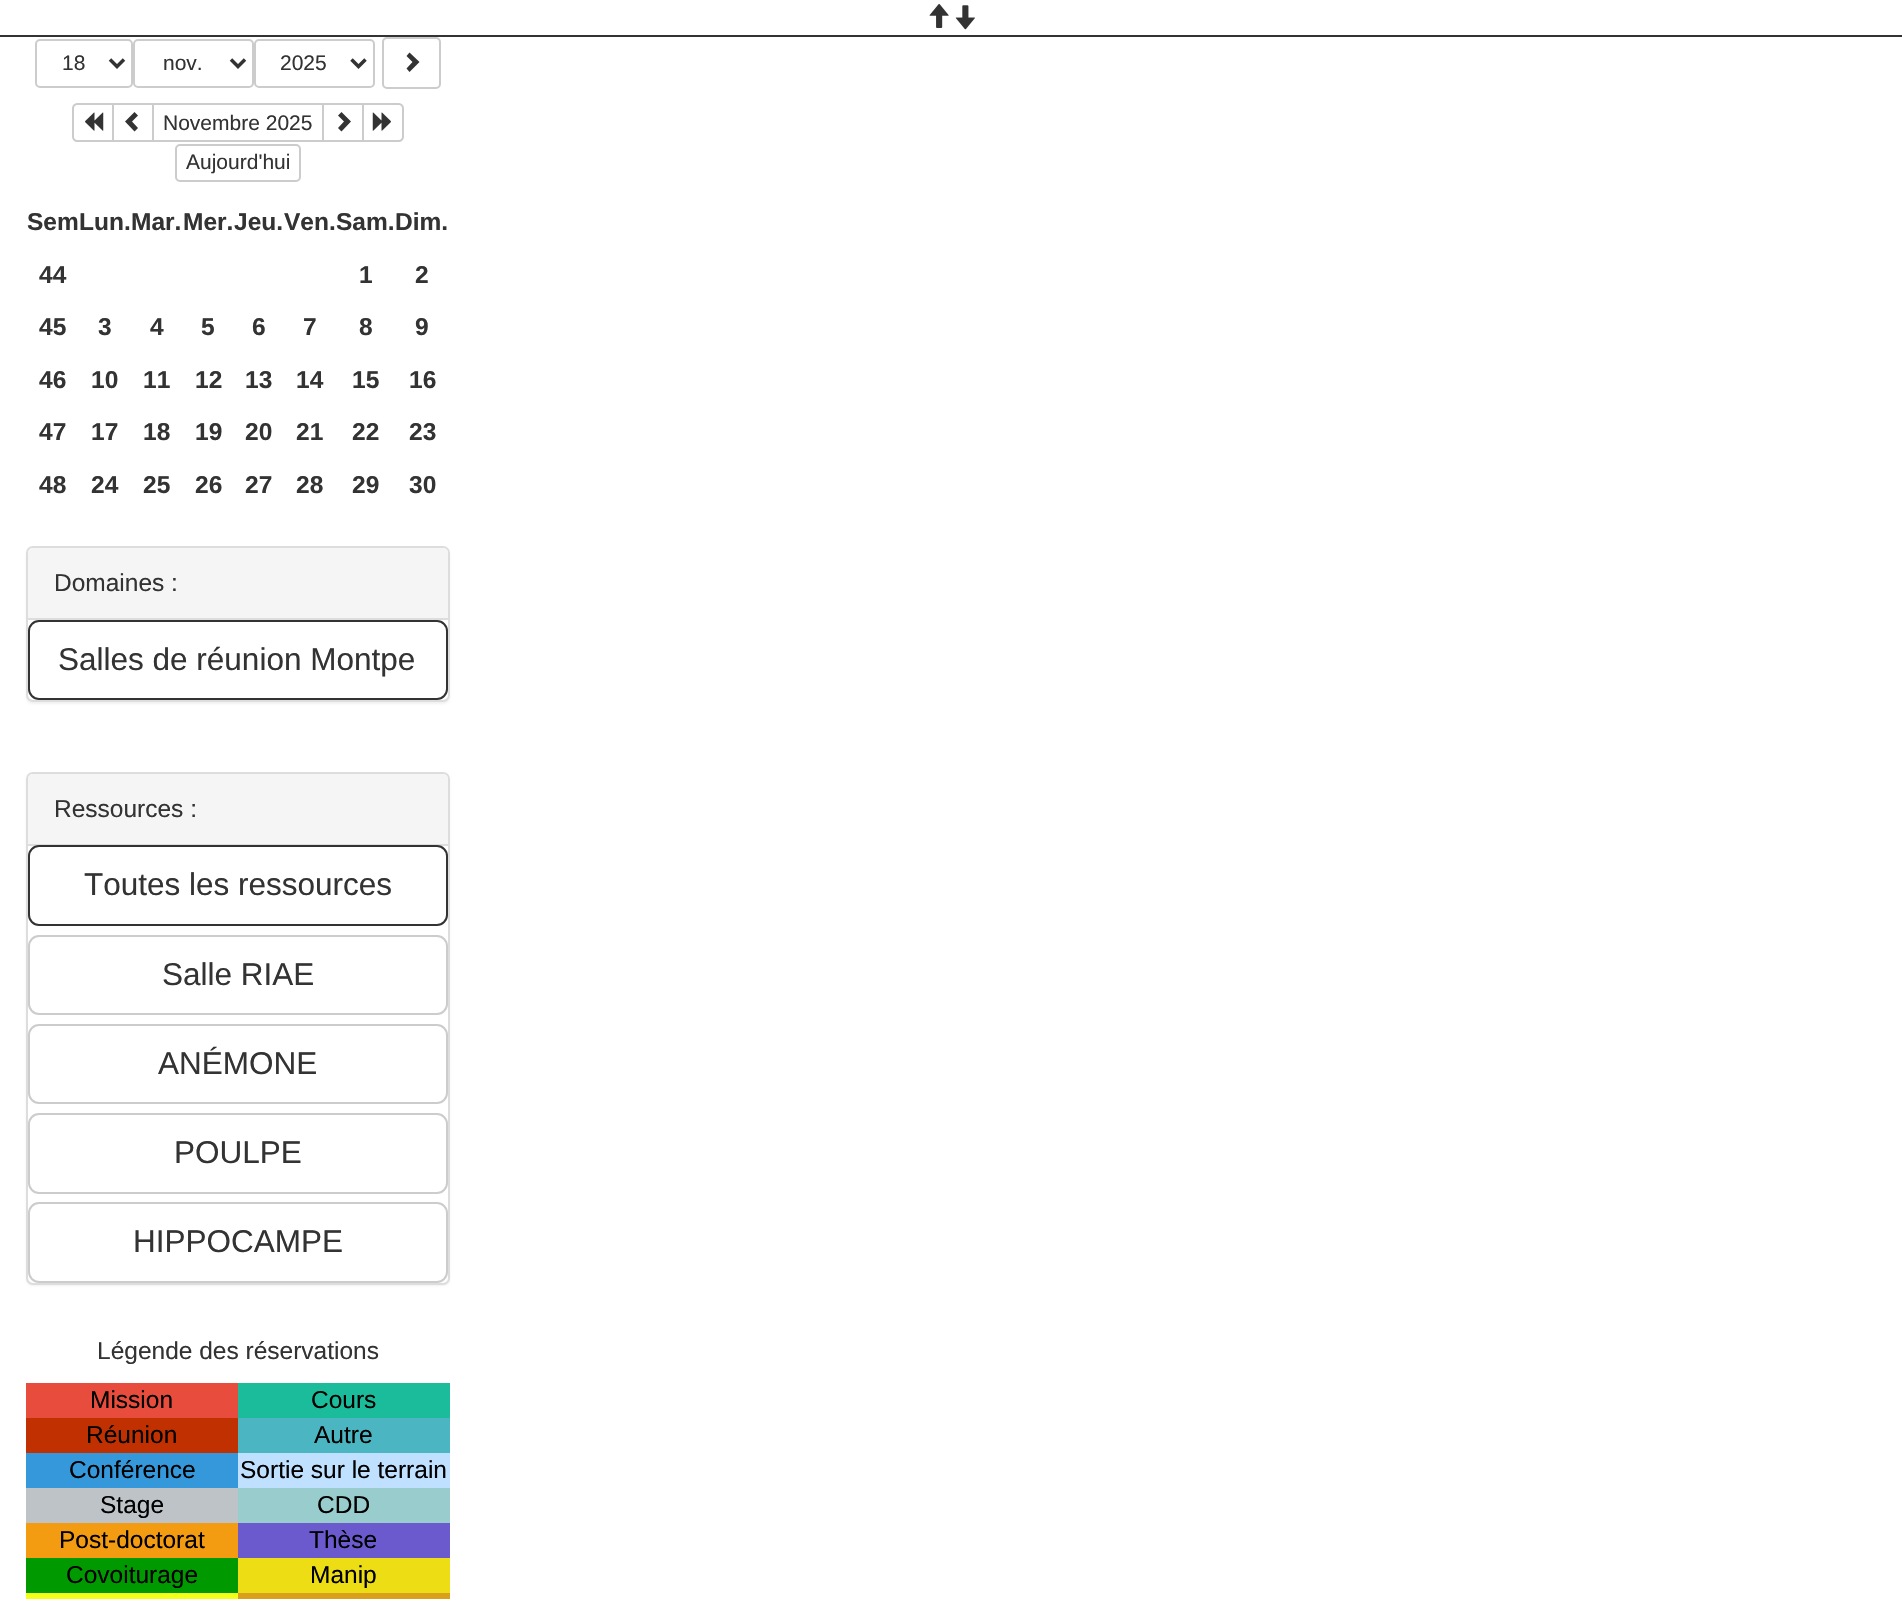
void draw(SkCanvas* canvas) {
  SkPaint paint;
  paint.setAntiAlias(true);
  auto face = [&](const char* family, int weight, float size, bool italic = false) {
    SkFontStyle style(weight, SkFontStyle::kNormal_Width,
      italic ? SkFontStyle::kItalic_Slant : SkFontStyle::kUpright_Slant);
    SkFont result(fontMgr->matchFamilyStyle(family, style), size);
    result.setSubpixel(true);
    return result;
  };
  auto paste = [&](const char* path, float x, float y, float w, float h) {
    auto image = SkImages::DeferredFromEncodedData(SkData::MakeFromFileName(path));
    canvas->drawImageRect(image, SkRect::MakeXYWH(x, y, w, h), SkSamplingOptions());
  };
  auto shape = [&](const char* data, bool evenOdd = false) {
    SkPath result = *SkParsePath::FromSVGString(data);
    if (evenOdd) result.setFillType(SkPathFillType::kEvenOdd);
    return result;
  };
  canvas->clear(0xffffffff);
  paint.setColor(0xff333333);
  canvas->drawRect(SkRect::MakeXYWH(0, 35, 1902, 2), paint);
  paste("img/1.png", 929, 4, 20, 24);
  paste("img/2.png", 955, 5, 20, 25);
  paint.setStroke(true);
  paint.setStrokeWidth(2);
  paint.setColor(0xffcccccc);
  canvas->drawRoundRect(SkRect::MakeXYWH(36, 40, 96, 47), 4, 4, paint);
  paint.setStrokeWidth(3.5f);
  paint.setColor(0xff333333);
  canvas->drawPath(shape("M110 59.5L117 66.5L124 59.5"), paint);
  paint.setStrokeWidth(2);
  paint.setColor(0xffcccccc);
  canvas->drawRoundRect(SkRect::MakeXYWH(134, 40, 119, 47), 4, 4, paint);
  paint.setStrokeWidth(3.5f);
  paint.setColor(0xff333333);
  canvas->drawPath(shape("M231 59.5L238 66.5L245 59.5"), paint);
  paint.setStrokeWidth(2);
  paint.setColor(0xffcccccc);
  canvas->drawRoundRect(SkRect::MakeXYWH(255, 40, 119, 47), 4, 4, paint);
  paint.setStrokeWidth(3.5f);
  paint.setColor(0xff333333);
  canvas->drawPath(shape("M351.5 59.5L358.5 66.5L365.5 59.5"), paint);
  paint.setStrokeWidth(2);
  paint.setColor(0xffcccccc);
  canvas->drawRoundRect(SkRect::MakeXYWH(383, 38, 57, 50), 4, 4, paint);
  paint.setStroke(false);
  paint.setColor(0xff333333);
  canvas->drawPath(shape("M419.5 62L409.5 72L406.5 68.5L412.5 62L406.5 56L409.5 52.5Z"), paint);
  paint.setStroke(true);
  paint.setColor(0xffcccccc);
  canvas->drawPath(shape("M77 104H113V141H77C75 141 73 139 73 137V108C73 106 75 104 77 104Z"), paint);
  paste("img/3.png", 85, 112, 19, 19);
  canvas->drawRect(SkRect::MakeXYWH(113, 104, 40, 37), paint);
  paint.setStroke(false);
  paint.setColor(0xff333333);
  canvas->drawPath(shape("M138 115.5L132 121.5L138 128L134.5 131.5L125 121.5L134.5 112Z"), paint);
  paint.setStroke(true);
  paint.setColor(0xffcccccc);
  canvas->drawRect(SkRect::MakeXYWH(153, 104, 170, 37), paint);
  canvas->drawRect(SkRect::MakeXYWH(323, 104, 40, 37), paint);
  paint.setStroke(false);
  paint.setColor(0xff333333);
  canvas->drawPath(shape("M351 121.5L341.5 131.5L338 128L344 121.5L338 115.5L341.5 112Z"), paint);
  paint.setColor(0xffffffff);
  canvas->drawPath(shape("M363 104H399C401 104 403 106 403 108V137C403 139 401 141 399 141H363Z"), paint);
  paint.setStroke(true);
  paint.setColor(0xffcccccc);
  canvas->drawPath(shape("M363 104H399C401 104 403 106 403 108V137C403 139 401 141 399 141H363Z"), paint);
  paste("img/4.png", 372, 112, 19, 19);
  canvas->drawRoundRect(SkRect::MakeXYWH(176, 145, 124, 36), 4, 4, paint);
  paint.setStroke(false);
  paint.setColor(0x0d000000);
  paint.setMaskFilter(SkMaskFilter::MakeBlur(kNormal_SkBlurStyle, 1));
  canvas->drawRoundRect(SkRect::MakeXYWH(26, 548, 424, 156), 7, 7, paint);
  paint.setMaskFilter(nullptr);
  paint.setColor(0xffffffff);
  canvas->drawRoundRect(SkRect::MakeXYWH(27, 547, 422, 154), 6, 6, paint);
  paint.setStroke(true);
  paint.setColor(0xffdddddd);
  canvas->drawRoundRect(SkRect::MakeXYWH(27, 547, 422, 154), 6, 6, paint);
  paint.setStroke(false);
  paint.setColor(0xfff5f5f5);
  canvas->drawPath(shape("M33 548H443C446 548 448 550 448 553V620H28V553C28 550 30 548 33 548Z"), paint);
  paint.setColor(0xffdddddd);
  canvas->drawRect(SkRect::MakeXYWH(28, 618, 420, 2), paint);
  paint.setStroke(true);
  paint.setColor(0xff333333);
  canvas->drawRoundRect(SkRect::MakeXYWH(29, 621, 418, 78), 10, 10, paint);
  paint.setStroke(false);
  paint.setColor(0x0d000000);
  paint.setMaskFilter(SkMaskFilter::MakeBlur(kNormal_SkBlurStyle, 1));
  canvas->drawRoundRect(SkRect::MakeXYWH(26, 774, 424, 512), 7, 7, paint);
  paint.setMaskFilter(nullptr);
  paint.setColor(0xffffffff);
  canvas->drawRoundRect(SkRect::MakeXYWH(27, 773, 422, 511), 6, 6, paint);
  paint.setStroke(true);
  paint.setColor(0xffdddddd);
  canvas->drawRoundRect(SkRect::MakeXYWH(27, 773, 422, 511), 6, 6, paint);
  paint.setStroke(false);
  paint.setColor(0xfff5f5f5);
  canvas->drawPath(shape("M33 774H443C446 774 448 776 448 779V845H28V779C28 776 30 774 33 774Z"), paint);
  paint.setColor(0xffdddddd);
  canvas->drawRect(SkRect::MakeXYWH(28, 844, 420, 2), paint);
  paint.setStroke(true);
  paint.setColor(0xff333333);
  canvas->drawRoundRect(SkRect::MakeXYWH(29, 846, 418, 79), 10, 10, paint);
  paint.setColor(0xffcccccc);
  canvas->drawRoundRect(SkRect::MakeXYWH(29, 936, 418, 78), 10, 10, paint);
  canvas->drawRoundRect(SkRect::MakeXYWH(29, 1025, 418, 78), 10, 10, paint);
  canvas->drawRoundRect(SkRect::MakeXYWH(29, 1114, 418, 79), 10, 10, paint);
  canvas->drawRoundRect(SkRect::MakeXYWH(29, 1203, 418, 79), 10, 10, paint);
  paint.setStroke(false);
  {
    const struct { float x, y, w, h; SkColor color; } items[] = {
      {26, 1383, 212, 35, 0xffe74c3c},
      {238, 1383, 212, 35, 0xff1abc9c},
      {26, 1418, 212, 35, 0xffc03000},
      {238, 1418, 212, 35, 0xff4bb5c1},
      {26, 1453, 212, 35, 0xff3498db},
      {238, 1453, 212, 35, 0xffc0e0ff},
      {26, 1488, 212, 35, 0xffbdc3c7},
      {238, 1488, 212, 35, 0xff99cccc},
      {26, 1523, 212, 35, 0xfff39c12},
      {238, 1523, 212, 35, 0xff6a5acd},
      {26, 1558, 212, 35, 0xff009900},
      {238, 1558, 212, 35, 0xffeddd14},
      {26, 1593, 212, 6, 0xfff3ff19},
      {238, 1593, 212, 6, 0xffdba01b},
    };
    for (auto [x, y, w, h, color] : items) {
      paint.setColor(color);
      canvas->drawRect(SkRect::MakeXYWH(x, y, w, h), paint);
    }
  }
  auto f0 = face("Liberation Sans", 400, 21);
  paint.setColor(0xff333333);
  {
    const struct { const char* s; float x, y; } items[] = {
      {"18", 62, 70},
      {"nov.", 163, 70},
      {"2025", 280, 70},
      {"Novembre 2025", 163, 130},
      {"Aujourd'hui", 186, 169},
    };
    for (auto [s, x, y] : items) {
      canvas->drawString(s, x, y, f0, paint);
    }
  }
  auto f1 = face("Liberation Sans", 700, 24.5f);
  {
    const struct { const char* s; float x, y; } items[] = {
      {"Sem", 27, 230},
      {"Lun.", 79, 230},
      {"Mar.", 131, 230},
      {"Mer.", 183, 230},
      {"Jeu.", 234, 230},
      {"Ven.", 284, 230},
      {"Sam.", 336, 230},
      {"Dim.", 395, 230},
      {"44", 39, 283},
      {"1", 359, 283},
      {"2", 415, 283},
      {"45", 39, 335},
      {"3", 98, 335},
      {"4", 150, 335},
      {"5", 201, 335},
      {"6", 252, 335},
      {"7", 303, 335},
      {"8", 359, 335},
      {"9", 415, 335},
      {"46", 39, 388},
      {"10", 91, 388},
      {"11", 143, 388},
      {"12", 195, 388},
      {"13", 245, 388},
      {"14", 296, 388},
      {"15", 352, 388},
      {"16", 409, 388},
      {"47", 39, 440},
      {"17", 91, 440},
      {"18", 143, 440},
      {"19", 195, 440},
      {"20", 245, 440},
      {"21", 296, 440},
      {"22", 352, 440},
      {"23", 409, 440},
      {"48", 39, 493},
      {"24", 91, 493},
      {"25", 143, 493},
      {"26", 195, 493},
      {"27", 245, 493},
      {"28", 296, 493},
      {"29", 352, 493},
      {"30", 409, 493},
    };
    for (auto [s, x, y] : items) {
      canvas->drawString(s, x, y, f1, paint);
    }
  }
  auto f2 = face("Liberation Sans", 400, 24.5f);
  canvas->drawString("Domaines :", 54, 591, f2, paint);
  auto f3 = face("Liberation Sans", 400, 31.5f);
  canvas->drawString("Salles de réunion Montpe", 58, 670, f3, paint);
  canvas->drawString("Ressources :", 54, 817, f2, paint);
  {
    const struct { const char* s; float x, y; } items[] = {
      {"Toutes les ressources", 84, 895},
      {"Salle RIAE", 162, 985},
      {"ANÉMONE", 158, 1074},
      {"POULPE", 174, 1163},
      {"HIPPOCAMPE", 133, 1252},
    };
    for (auto [s, x, y] : items) {
      canvas->drawString(s, x, y, f3, paint);
    }
  }
  canvas->drawString("Légende des réservations", 97, 1359, f2, paint);
  paint.setColor(0xff000000);
  {
    const struct { const char* s; float x, y; } items[] = {
      {"Mission", 90, 1408},
      {"Cours", 311, 1408},
      {"Réunion", 86, 1443},
      {"Autre", 314, 1443},
      {"Conférence", 69, 1478},
      {"Sortie sur le terrain", 240, 1478},
      {"Stage", 100, 1513},
      {"CDD", 317, 1513},
      {"Post-doctorat", 59, 1548},
      {"Thèse", 309, 1548},
      {"Covoiturage", 66, 1583},
      {"Manip", 310, 1583},
    };
    for (auto [s, x, y] : items) {
      canvas->drawString(s, x, y, f2, paint);
    }
  }
}
